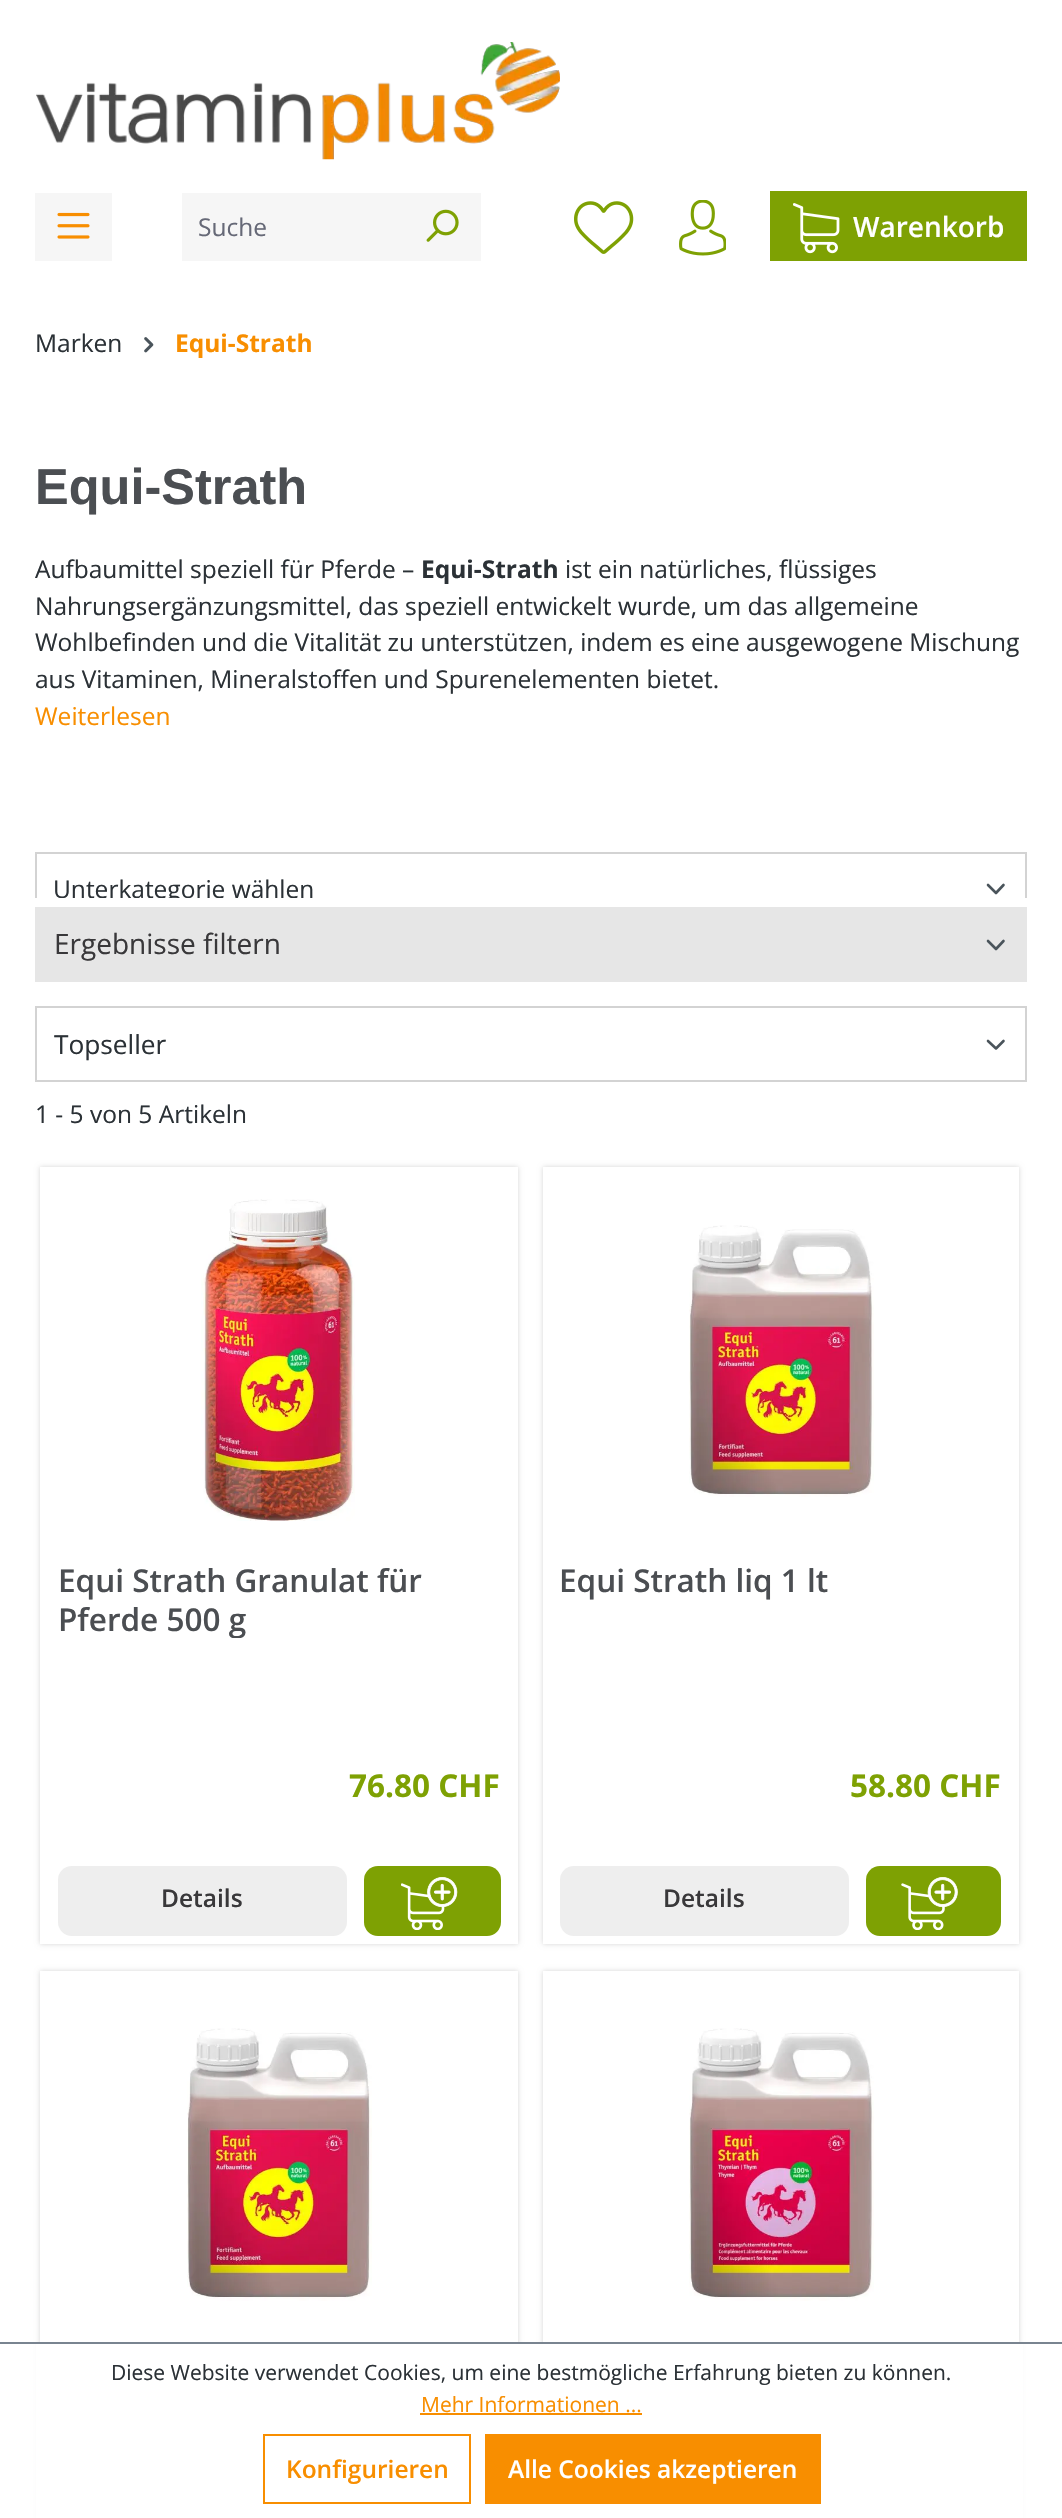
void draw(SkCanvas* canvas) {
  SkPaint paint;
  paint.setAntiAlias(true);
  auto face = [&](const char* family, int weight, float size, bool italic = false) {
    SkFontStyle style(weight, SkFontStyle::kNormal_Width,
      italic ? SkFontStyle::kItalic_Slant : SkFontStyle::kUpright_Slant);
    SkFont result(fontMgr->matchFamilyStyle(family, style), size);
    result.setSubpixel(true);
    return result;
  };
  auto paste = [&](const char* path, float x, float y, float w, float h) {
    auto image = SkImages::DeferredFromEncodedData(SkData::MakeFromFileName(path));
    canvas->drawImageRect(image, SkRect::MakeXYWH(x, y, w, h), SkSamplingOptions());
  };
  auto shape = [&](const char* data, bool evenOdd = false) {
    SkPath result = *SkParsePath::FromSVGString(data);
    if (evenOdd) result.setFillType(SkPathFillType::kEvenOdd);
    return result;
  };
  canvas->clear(0xffffffff);
  paste("img/1.png", 36, 42, 524, 118);
  paint.setColor(0xfff6f6f6);
  canvas->drawRect(SkRect::MakeXYWH(35, 193, 77, 68), paint);
  paste("img/2.png", 57, 212, 33, 27);
  canvas->drawRect(SkRect::MakeXYWH(182, 193, 299, 68), paint);
  paste("img/3.png", 426, 209, 33, 33);
  paste("img/4.png", 574, 201, 60, 53);
  paste("img/5.png", 679, 200, 47, 56);
  paint.setColor(0xff7ea103);
  canvas->drawRect(SkRect::MakeXYWH(770, 191, 257, 70), paint);
  paste("img/6.png", 793, 203, 47, 51);
  paste("img/7.png", 144, 337, 10, 16);
  paint.setStroke(true);
  paint.setStrokeWidth(2.6f);
  paint.setStrokeCap(SkPaint::kRound_Cap);
  paint.setStrokeJoin(SkPaint::kRound_Join);
  paint.setColor(0xff4a545b);
  canvas->drawPath(shape("M988 885L996 893L1003.5 885"), paint);
  canvas->save();
  canvas->clipRect(SkRect::MakeXYWH(35, 852, 992, 46));
  paint.setStrokeWidth(2);
  paint.setStrokeCap(SkPaint::kButt_Cap);
  paint.setStrokeJoin(SkPaint::kMiter_Join);
  paint.setColor(0xffd3d3d3);
  canvas->drawRect(SkRect::MakeXYWH(36, 853, 990, 70), paint);
  canvas->restore();
  paint.setStroke(false);
  paint.setColor(0xffe6e6e6);
  canvas->drawRect(SkRect::MakeXYWH(35, 907, 992, 75), paint);
  paint.setStroke(true);
  paint.setStrokeWidth(2.6f);
  paint.setStrokeCap(SkPaint::kRound_Cap);
  paint.setStrokeJoin(SkPaint::kRound_Join);
  paint.setColor(0xff4a545b);
  canvas->drawPath(shape("M988 941L996 949L1003.5 941"), paint);
  canvas->drawPath(shape("M988 1041L996 1048.5L1003.5 1041"), paint);
  paint.setStrokeWidth(2);
  paint.setStrokeCap(SkPaint::kButt_Cap);
  paint.setStrokeJoin(SkPaint::kMiter_Join);
  paint.setColor(0xffd3d3d3);
  canvas->drawRect(SkRect::MakeXYWH(36, 1007, 990, 74), paint);
  paint.setStroke(false);
  paint.setColor(0x29000000);
  paint.setMaskFilter(SkMaskFilter::MakeBlur(kNormal_SkBlurStyle, 2.5f));
  canvas->drawRect(SkRect::MakeXYWH(40, 1167, 478, 777), paint);
  paint.setMaskFilter(nullptr);
  paint.setColor(0xffffffff);
  canvas->drawRect(SkRect::MakeXYWH(40, 1167, 478, 777), paint);
  paste("img/8.png", 201, 1199, 154, 322);
  paint.setColor(0xffeeeeee);
  canvas->drawRoundRect(SkRect::MakeXYWH(58, 1866, 289, 70), 14, 14, paint);
  paint.setColor(0xff7ea103);
  canvas->drawRoundRect(SkRect::MakeXYWH(364, 1866, 137, 70), 14, 14, paint);
  paste("img/9.png", 401, 1877, 57, 53);
  paint.setColor(0x29000000);
  paint.setMaskFilter(SkMaskFilter::MakeBlur(kNormal_SkBlurStyle, 2.5f));
  canvas->drawRect(SkRect::MakeXYWH(543, 1167, 476, 777), paint);
  paint.setMaskFilter(nullptr);
  paint.setColor(0xffffffff);
  canvas->drawRect(SkRect::MakeXYWH(543, 1167, 476, 777), paint);
  paste("img/10.png", 689, 1225, 185, 272);
  paint.setColor(0xffeeeeee);
  canvas->drawRoundRect(SkRect::MakeXYWH(560, 1866, 289, 70), 14, 14, paint);
  paint.setColor(0xff7ea103);
  canvas->drawRoundRect(SkRect::MakeXYWH(866, 1866, 135, 70), 14, 14, paint);
  paste("img/11.png", 901, 1877, 57, 53);
  paint.setColor(0x29000000);
  paint.setMaskFilter(SkMaskFilter::MakeBlur(kNormal_SkBlurStyle, 2.5f));
  canvas->drawRect(SkRect::MakeXYWH(40, 1971, 478, 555), paint);
  paint.setMaskFilter(nullptr);
  paint.setColor(0xffffffff);
  canvas->drawRect(SkRect::MakeXYWH(40, 1971, 478, 371), paint);
  paste("img/12.png", 187, 2028, 185, 273);
  paint.setColor(0x29000000);
  paint.setMaskFilter(SkMaskFilter::MakeBlur(kNormal_SkBlurStyle, 2.5f));
  canvas->drawRect(SkRect::MakeXYWH(543, 1971, 476, 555), paint);
  paint.setMaskFilter(nullptr);
  paint.setColor(0xffffffff);
  canvas->drawRect(SkRect::MakeXYWH(543, 1971, 476, 371), paint);
  paste("img/13.png", 689, 2028, 185, 273);
  {
    const struct { float x, y, w, h; SkColor color; } items[] = {
      {36, 2344, 987, 174, 0xffffffff},
      {0, 2342, 1062, 2, 0xff798490},
      {420, 2413, 222, 2, 0xfff88e00},
    };
    for (auto [x, y, w, h, color] : items) {
      paint.setColor(color);
      canvas->drawRect(SkRect::MakeXYWH(x, y, w, h), paint);
    }
  }
  paint.setStroke(true);
  canvas->drawRect(SkRect::MakeXYWH(264, 2435, 206, 68), paint);
  paint.setStroke(false);
  canvas->drawRect(SkRect::MakeXYWH(485, 2434, 336, 70), paint);
  auto f0 = face("Open Sans", 400, 24.5f);
  paint.setColor(0xff666977);
  canvas->drawString("Suche", 198, 236, f0, paint);
  auto f1 = face("Open Sans", 600, 28);
  paint.setColor(0xffffffff);
  canvas->drawString("Warenkorb", 853, 237, f1, paint);
  paint.setColor(0xff2b3136);
  canvas->drawString("Marken", 35, 352, f0, paint);
  auto f2 = face("Open Sans", 700, 24.5f);
  paint.setColor(0xfff88e00);
  canvas->drawString("Equi-Strath", 175, 352, f2, paint);
  auto f3 = face("Liberation Sans", 700, 50.5f);
  paint.setColor(0xff4b4e52);
  canvas->drawString("Equi-Strath", 35, 504, f3, paint);
  paint.setColor(0xff2b3136);
  canvas->drawString("Aufbaumittel speziell für Pferde –", 35, 578, f0, paint);
  canvas->drawString("Equi-Strath", 421, 578, f2, paint);
  {
    const struct { const char* s; float x, y; } items[] = {
      {"ist ein natürliches, flüssiges", 565, 578},
      {"Nahrungsergänzungsmittel, das speziell entwickelt wurde, um das allgemeine", 35, 615},
      {"Wohlbefinden und die Vitalität zu unterstützen, indem es eine ausgewogene Mischung", 35, 651},
      {"aus Vitaminen, Mineralstoffen und Spurenelementen bietet.", 35, 688},
    };
    for (auto [s, x, y] : items) {
      canvas->drawString(s, x, y, f0, paint);
    }
  }
  paint.setColor(0xfff88e00);
  canvas->drawString("Weiterlesen", 35, 725, f0, paint);
  canvas->save();
  canvas->clipRect(SkRect::MakeXYWH(53, 870, 925, 28));
  paint.setColor(0xff2b3136);
  canvas->drawString("Unterkategorie wählen", 53, 898, f0, paint);
  canvas->restore();
  auto f4 = face("Open Sans", 400, 28);
  paint.setColor(0xff39383a);
  canvas->drawString("Ergebnisse filtern", 54, 954, f4, paint);
  auto f5 = face("Open Sans", 400, 26.25f);
  paint.setColor(0xff2b3136);
  canvas->drawString("Topseller", 54, 1054, f5, paint);
  canvas->drawString("1 - 5 von 5 Artikeln", 35, 1123, f0, paint);
  auto f6 = face("Open Sans", 600, 31.5f);
  paint.setColor(0xff4b4e52);
  canvas->drawString("Equi Strath Granulat für", 58, 1592, f6, paint);
  canvas->save();
  canvas->clipRect(SkRect::MakeXYWH(58, 1561, 443, 77));
  canvas->drawString("Pferde 500 g", 58, 1631, f6, paint);
  canvas->restore();
  auto f7 = face("Open Sans", 700, 31.5f);
  paint.setColor(0xff7ea103);
  canvas->drawString("76.80 CHF", 349, 1797, f7, paint);
  auto f8 = face("Open Sans", 600, 24.5f);
  paint.setColor(0xff39383a);
  canvas->drawString("Details", 161, 1907, f8, paint);
  paint.setColor(0xff4b4e52);
  canvas->drawString("Equi Strath liq 1 lt", 559, 1592, f6, paint);
  paint.setColor(0xff7ea103);
  canvas->drawString("58.80 CHF", 850, 1797, f7, paint);
  paint.setColor(0xff39383a);
  canvas->drawString("Details", 663, 1907, f8, paint);
  auto f9 = face("Open Sans", 400, 21);
  paint.setColor(0xff2b3136);
  canvas->drawString("Diese Website verwendet Cookies, um eine bestmögliche Erfahrung bieten zu können.", 111, 2380, f9, paint);
  paint.setColor(0xfff88e00);
  canvas->drawString("Mehr Informationen ...", 421, 2412, f9, paint);
  canvas->drawString("Konfigurieren", 286, 2478, f8, paint);
  paint.setColor(0xffffffff);
  canvas->drawString("Alle Cookies akzeptieren", 508, 2478, f8, paint);
}
